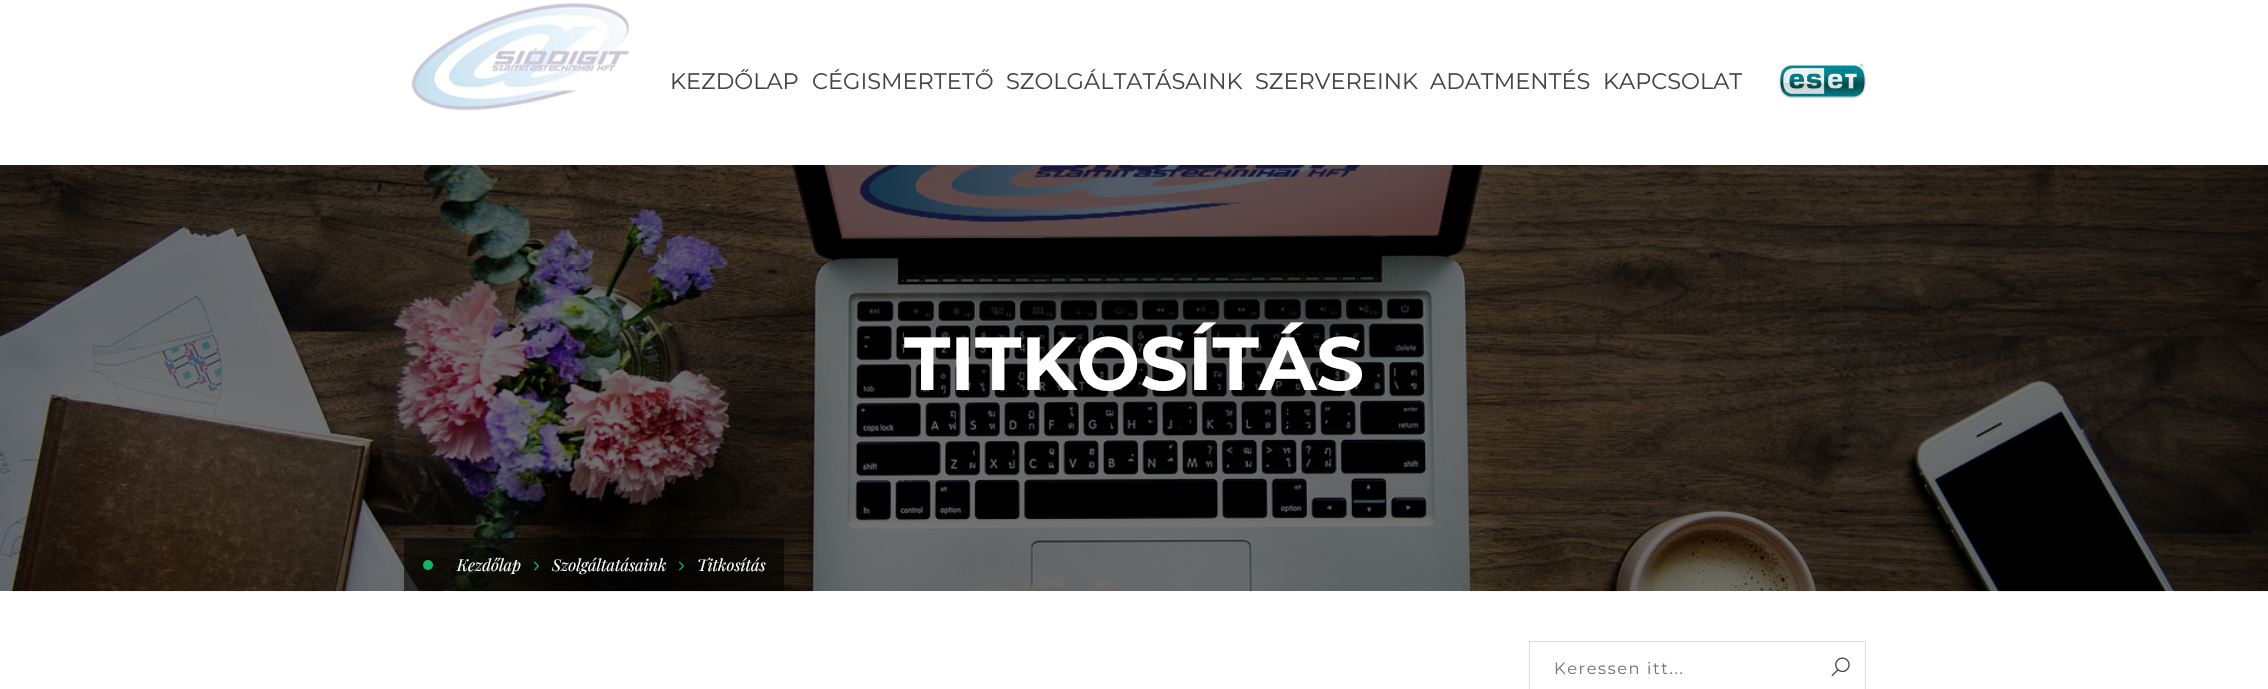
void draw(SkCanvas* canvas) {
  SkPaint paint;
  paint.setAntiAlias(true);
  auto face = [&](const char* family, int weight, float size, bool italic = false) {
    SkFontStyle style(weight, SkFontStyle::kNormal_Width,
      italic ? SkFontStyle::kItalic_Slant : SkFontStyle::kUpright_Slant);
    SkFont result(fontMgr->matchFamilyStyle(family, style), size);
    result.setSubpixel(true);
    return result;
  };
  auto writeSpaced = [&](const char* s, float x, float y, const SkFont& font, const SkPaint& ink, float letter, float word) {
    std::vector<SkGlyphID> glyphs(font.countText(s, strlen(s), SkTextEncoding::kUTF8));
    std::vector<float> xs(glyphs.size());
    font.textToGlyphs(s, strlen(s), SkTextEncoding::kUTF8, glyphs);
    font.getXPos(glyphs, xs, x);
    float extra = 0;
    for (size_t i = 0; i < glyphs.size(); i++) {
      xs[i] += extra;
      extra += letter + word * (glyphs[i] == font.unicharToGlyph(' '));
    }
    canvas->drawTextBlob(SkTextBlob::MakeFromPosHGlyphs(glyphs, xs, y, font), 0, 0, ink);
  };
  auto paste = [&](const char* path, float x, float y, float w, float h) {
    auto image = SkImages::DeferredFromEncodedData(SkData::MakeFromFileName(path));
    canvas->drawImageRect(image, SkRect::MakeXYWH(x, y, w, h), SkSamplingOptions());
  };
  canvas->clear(0xffffffff);
  paste("img/1.png", 411, 3, 219, 108);
  paste("img/2.png", 1779, 63, 87, 35);
  paste("img/3.png", 0, 165, 2268, 427);
  paint.setColor(0x99000000);
  canvas->drawRect(SkRect::MakeXYWH(404, 538, 380, 53), paint);
  paint.setColor(0xff10b765);
  canvas->drawCircle(428, 565, 5, paint);
  paste("img/4.png", 533, 561, 7, 10);
  paste("img/5.png", 678, 561, 7, 10);
  paint.setStroke(true);
  paint.setStrokeWidth(1);
  paint.setColor(0xffdddddd);
  canvas->drawRect(SkRect::MakeXYWH(1529.5f, 641.5f, 336, 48), paint);
  paste("img/6.png", 1831, 657, 19, 20);
  auto f0 = face("Montserrat", 400, 22.5f);
  paint.setStroke(false);
  paint.setColor(0xff444444);
  {
    const struct { const char* s; float x, y; } items[] = {
      {"KEZDŐLAP", 670, 89},
      {"CÉGISMERTETŐ", 812, 89},
      {"SZOLGÁLTATÁSAINK", 1006, 89},
      {"SZERVEREINK", 1255, 89},
      {"ADATMENTÉS", 1430, 89},
      {"KAPCSOLAT", 1603, 89},
    };
    for (auto [s, x, y] : items) {
      canvas->drawString(s, x, y, f0, paint);
    }
  }
  auto f1 = face("Montserrat", 700, 75);
  paint.setColor(0xffffffff);
  canvas->drawString("TITKOSÍTÁS", 904, 390, f1, paint);
  auto f2 = face("Playfair Display", 400, 16.25f, true);
  {
    const struct { const char* s; float x, y; } items[] = {
      {"Kezdőlap", 457, 571},
      {"Szolgáltatásaink", 552, 571},
      {"Titkosítás", 697, 571},
    };
    for (auto [s, x, y] : items) {
      canvas->drawString(s, x, y, f2, paint);
    }
  }
  auto f3 = face("Montserrat", 400, 16.25f);
  paint.setColor(0xff757575);
  writeSpaced("Keressen itt...", 1554, 674, f3, paint, 1.6f, 0);
}
